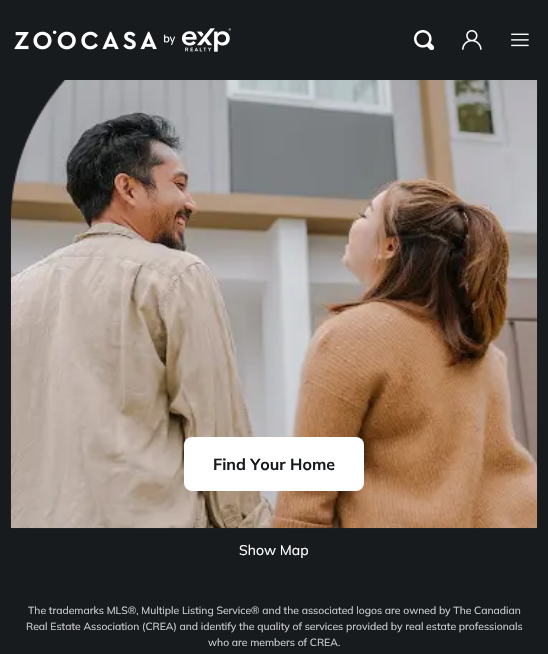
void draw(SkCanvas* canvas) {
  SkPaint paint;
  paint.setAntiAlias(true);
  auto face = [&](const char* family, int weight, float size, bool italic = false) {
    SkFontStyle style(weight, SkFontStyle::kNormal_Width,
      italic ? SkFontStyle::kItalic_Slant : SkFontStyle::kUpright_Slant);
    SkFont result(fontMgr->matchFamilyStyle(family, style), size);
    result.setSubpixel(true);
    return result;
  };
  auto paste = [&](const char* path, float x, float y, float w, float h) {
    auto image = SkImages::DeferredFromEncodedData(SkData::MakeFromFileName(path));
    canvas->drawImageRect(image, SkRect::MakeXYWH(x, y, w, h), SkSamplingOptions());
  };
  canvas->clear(0xff181b1e);
  paste("img/1.png", 14, 28, 217, 24);
  paste("img/2.png", 414, 30, 20, 20);
  paste("img/3.png", 462, 30, 20, 20);
  paste("img/4.png", 511, 33, 18, 14);
  paste("img/5.png", 10, 80, 528, 449);
  paint.setColor(0xffffffff);
  canvas->drawRoundRect(SkRect::MakeXYWH(184, 437, 180, 54), 8, 8, paint);
  auto f0 = face("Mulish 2", 200, 16);
  paint.setColor(0xff181b1e);
  canvas->drawString("Find Your Home", 213, 470, f0, paint);
  auto f1 = face("Mulish", 200, 10.4f);
  paint.setColor(0xffcecfd3);
  {
    const struct { const char* s; float x, y; } items[] = {
      {"The trademarks MLS®, Multiple Listing Service® and the associated logos are owned by The Canadian", 28, 614},
      {"Real Estate Association (CREA) and identify the quality of services provided by real estate professionals", 26, 630},
      {"who are members of CREA.", 208, 646},
    };
    for (auto [s, x, y] : items) {
      canvas->drawString(s, x, y, f1, paint);
    }
  }
  auto f2 = face("Mulish", 200, 14);
  paint.setColor(0xffffffff);
  canvas->drawString("Show Map", 239, 555, f2, paint);
}
